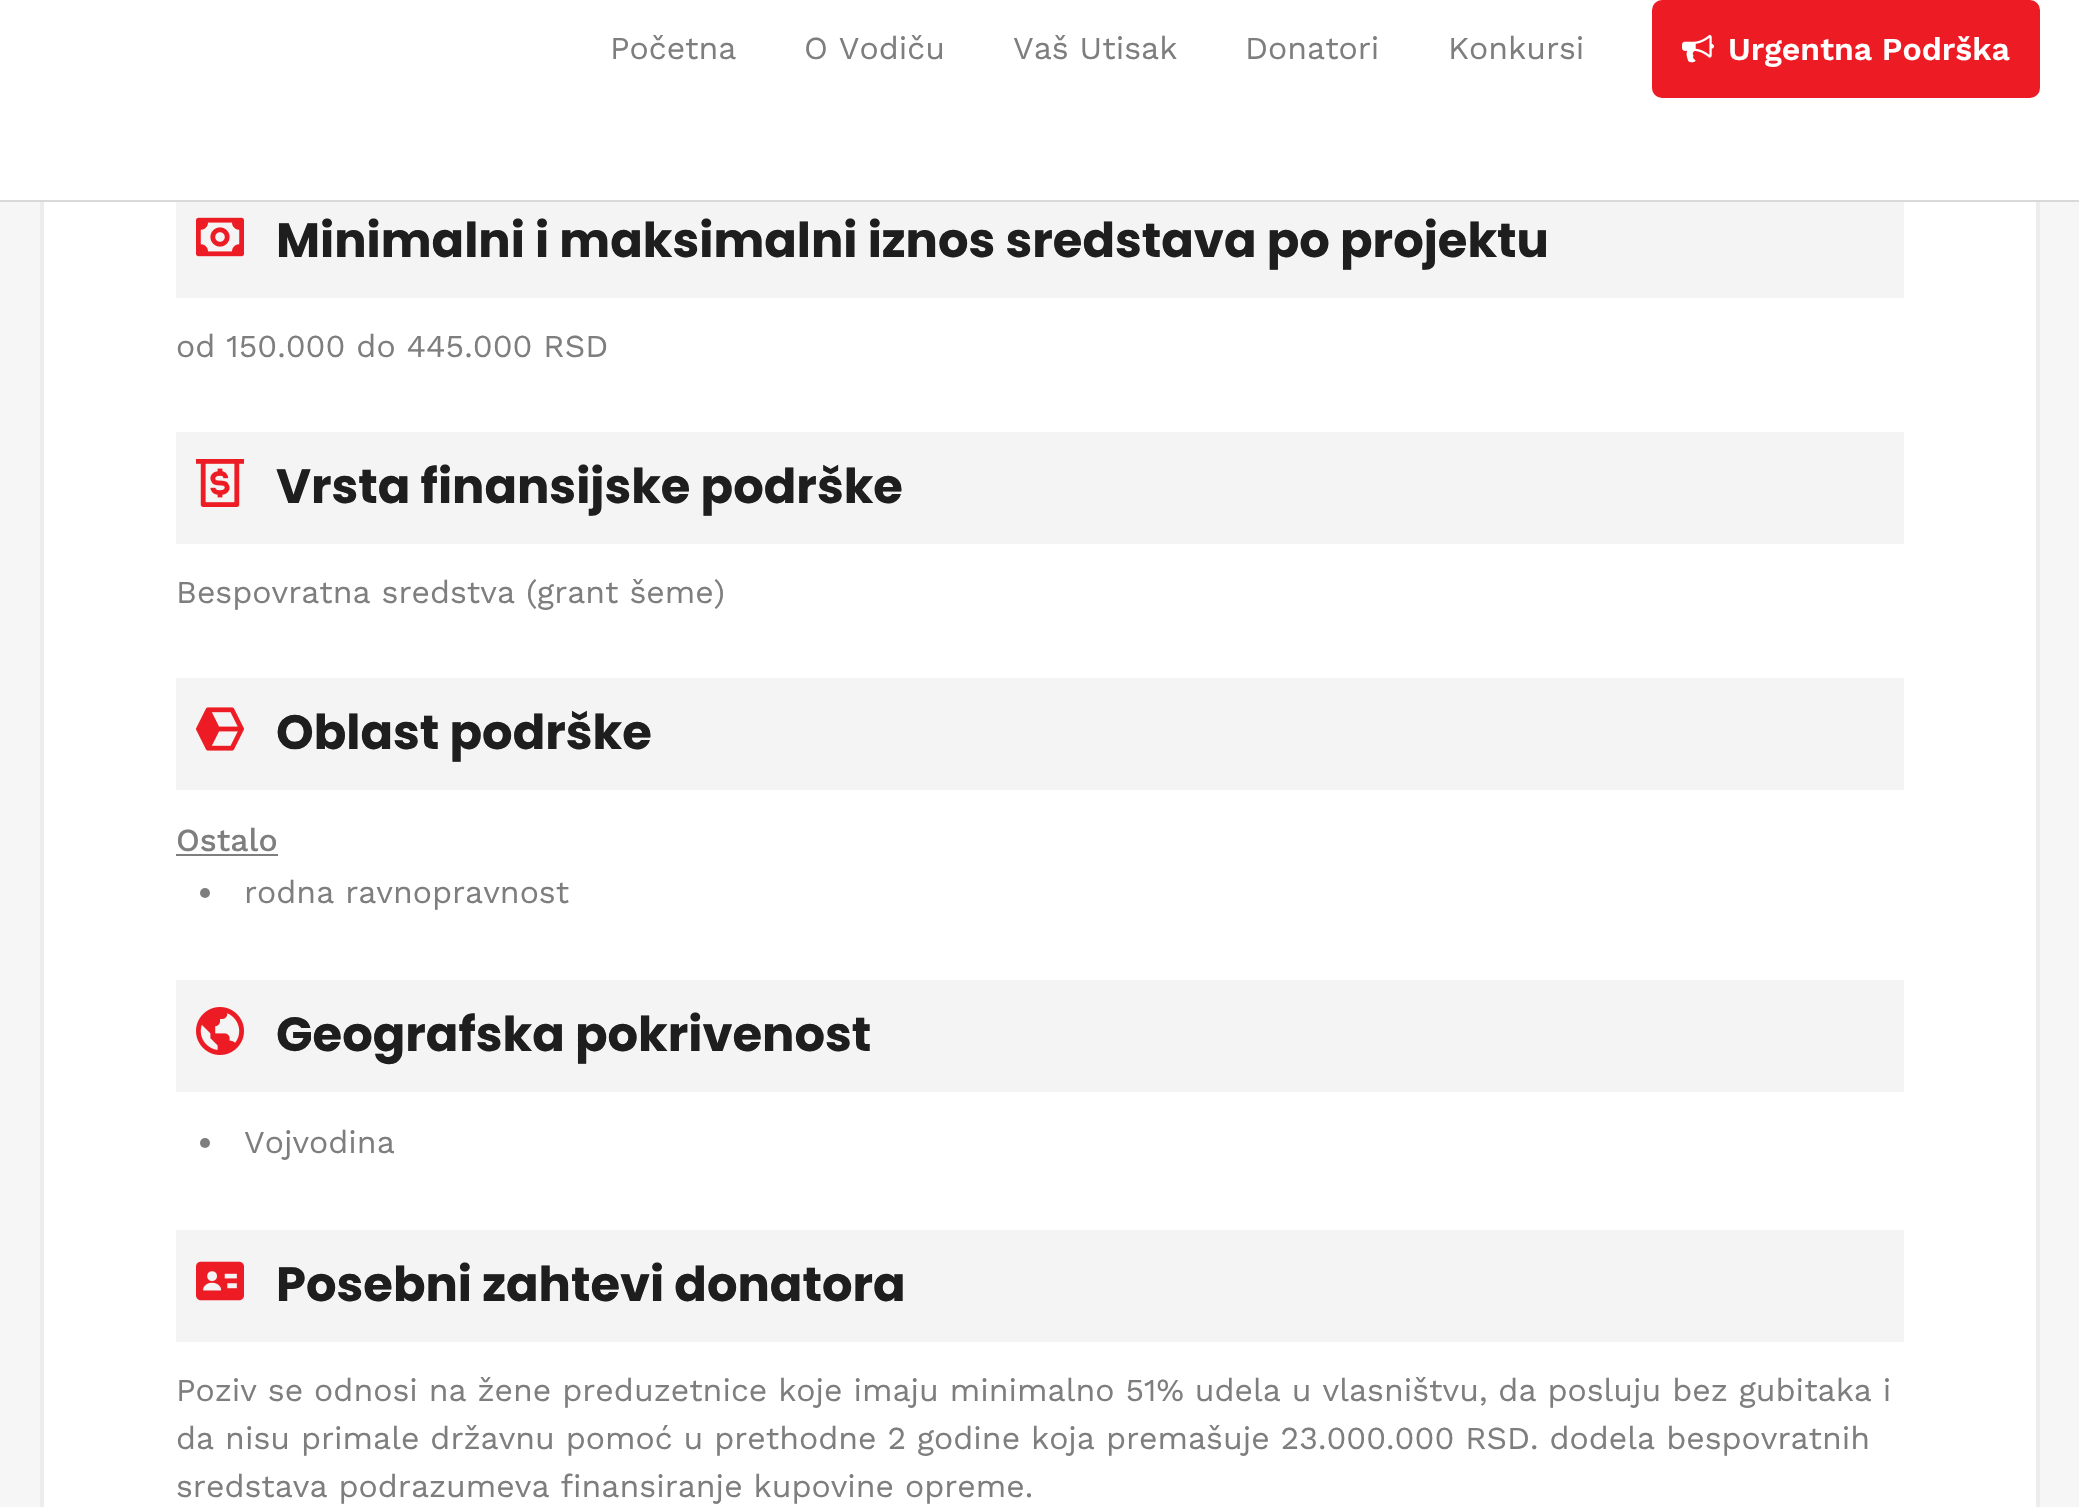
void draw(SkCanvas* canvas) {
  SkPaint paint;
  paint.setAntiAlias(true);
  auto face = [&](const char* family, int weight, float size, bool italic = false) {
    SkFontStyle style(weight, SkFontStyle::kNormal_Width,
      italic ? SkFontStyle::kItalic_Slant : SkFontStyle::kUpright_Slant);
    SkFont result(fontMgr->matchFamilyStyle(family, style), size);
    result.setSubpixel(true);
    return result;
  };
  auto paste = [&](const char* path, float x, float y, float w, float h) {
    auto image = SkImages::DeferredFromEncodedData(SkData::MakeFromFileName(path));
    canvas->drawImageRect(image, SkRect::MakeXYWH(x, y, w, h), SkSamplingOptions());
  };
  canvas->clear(0xfff6f6f6);
  paint.setColor(0xffffffff);
  canvas->drawRect(SkRect::MakeXYWH(44, 202, 1992, 1305), paint);
  paint.setStroke(true);
  paint.setStrokeWidth(4);
  paint.setColor(0xffececec);
  canvas->drawRect(SkRect::MakeXYWH(42, -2, 1996, 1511), paint);
  paint.setStroke(false);
  paint.setColor(0xffffffff);
  canvas->drawRect(SkRect::MakeXYWH(0, 0, 2079, 200), paint);
  paint.setColor(0xffd9d9d9);
  canvas->drawRect(SkRect::MakeXYWH(0, 200, 2079, 2), paint);
  paint.setColor(0xffed1c24);
  canvas->drawRoundRect(SkRect::MakeXYWH(1652, 0, 388, 98), 10, 10, paint);
  paste("img/1.png", 1682, 34, 32, 29);
  paint.setColor(0xfff4f4f4);
  canvas->drawRect(SkRect::MakeXYWH(176, 202, 1728, 96), paint);
  paste("img/2.png", 196, 217, 48, 40);
  canvas->drawRect(SkRect::MakeXYWH(176, 432, 1728, 112), paint);
  paste("img/3.png", 196, 459, 48, 48);
  canvas->drawRect(SkRect::MakeXYWH(176, 678, 1728, 112), paint);
  paste("img/4.png", 196, 707, 48, 44);
  paint.setColor(0xff7e7e7e);
  canvas->drawRect(SkRect::MakeXYWH(176, 854, 102, 2), paint);
  canvas->drawCircle(205, 893, 5, paint);
  paint.setColor(0xfff4f4f4);
  canvas->drawRect(SkRect::MakeXYWH(176, 980, 1728, 112), paint);
  paste("img/5.png", 196, 1007, 48, 48);
  paint.setColor(0xff7e7e7e);
  canvas->drawCircle(205, 1143, 5, paint);
  paint.setColor(0xfff4f4f4);
  canvas->drawRect(SkRect::MakeXYWH(176, 1230, 1728, 112), paint);
  paste("img/6.png", 196, 1261, 48, 40);
  auto f0 = face("Work Sans", 400, 32);
  paint.setColor(0xff7e7e7e);
  {
    const struct { const char* s; float x, y; } items[] = {
      {"Početna", 610, 59},
      {"O Vodiču", 804, 59},
      {"Vaš Utisak", 1013, 59},
      {"Donatori", 1245, 59},
      {"Konkursi", 1448, 59},
    };
    for (auto [s, x, y] : items) {
      canvas->drawString(s, x, y, f0, paint);
    }
  }
  auto f1 = face("Work Sans", 600, 32);
  paint.setColor(0xffffffff);
  canvas->drawString("Urgentna Podrška", 1728, 60, f1, paint);
  auto f2 = face("Poppins", 700, 48);
  paint.setColor(0xff1e1e1e);
  canvas->drawString("Minimalni i maksimalni iznos sredstava po projektu", 276, 257, f2, paint);
  paint.setColor(0xff7e7e7e);
  canvas->drawString("od 150.000 do 445.000 RSD", 176, 357, f0, paint);
  paint.setColor(0xff1e1e1e);
  canvas->drawString("Vrsta finansijske podrške", 276, 503, f2, paint);
  paint.setColor(0xff7e7e7e);
  canvas->drawString("Bespovratna sredstva (grant šeme)", 176, 603, f0, paint);
  paint.setColor(0xff1e1e1e);
  canvas->drawString("Oblast podrške", 276, 749, f2, paint);
  auto f3 = face("Work Sans", 500, 32);
  paint.setColor(0xff7e7e7e);
  canvas->drawString("Ostalo", 176, 851, f3, paint);
  canvas->drawString("rodna ravnopravnost", 244, 903, f0, paint);
  paint.setColor(0xff1e1e1e);
  canvas->drawString("Geografska pokrivenost", 276, 1051, f2, paint);
  paint.setColor(0xff7e7e7e);
  canvas->drawString("Vojvodina", 244, 1153, f0, paint);
  paint.setColor(0xff1e1e1e);
  canvas->drawString("Posebni zahtevi donatora", 276, 1301, f2, paint);
  paint.setColor(0xff7e7e7e);
  {
    const struct { const char* s; float x, y; } items[] = {
      {"Poziv se odnosi na žene preduzetnice koje imaju minimalno 51% udela u vlasništvu, da posluju bez gubitaka i", 176, 1401},
      {"da nisu primale državnu pomoć u prethodne 2 godine koja premašuje 23.000.000 RSD. dodela bespovratnih", 176, 1449},
      {"sredstava podrazumeva finansiranje kupovine opreme.", 176, 1497},
    };
    for (auto [s, x, y] : items) {
      canvas->drawString(s, x, y, f0, paint);
    }
  }
}
